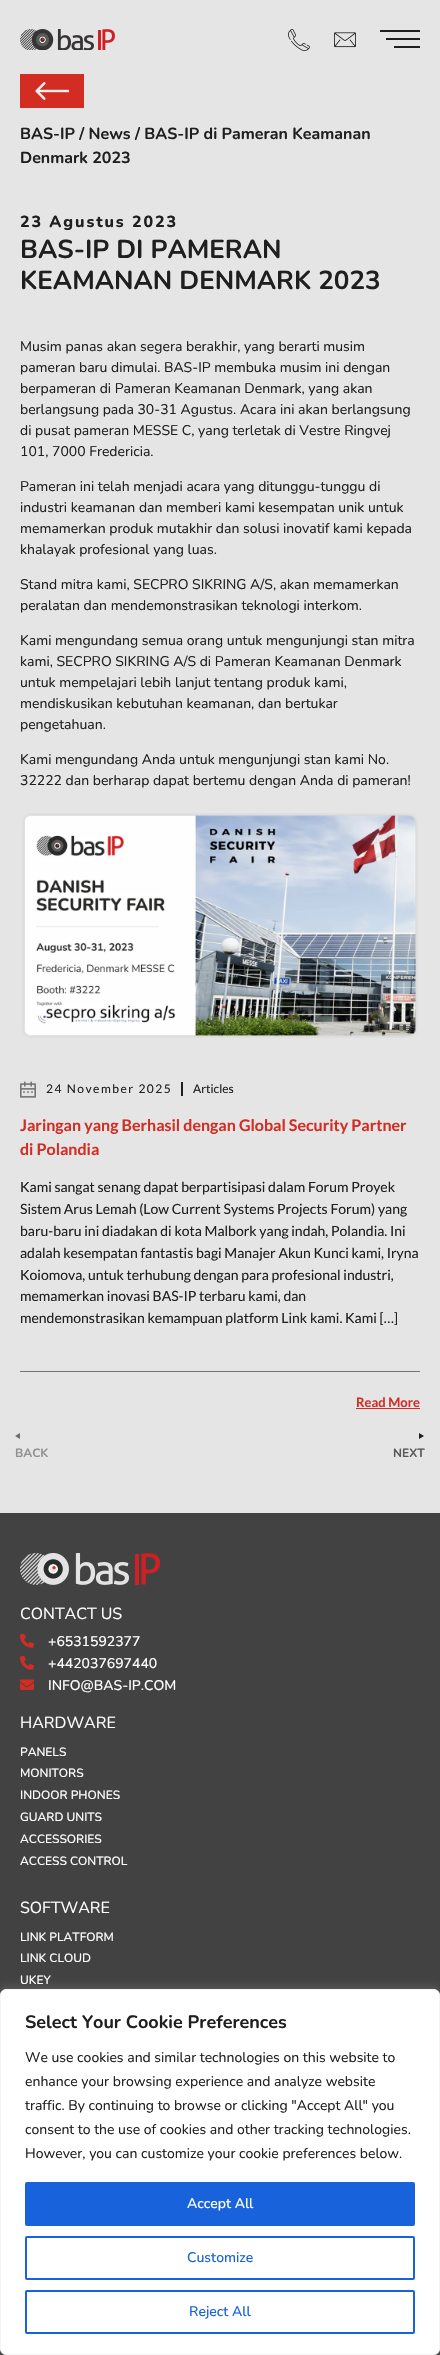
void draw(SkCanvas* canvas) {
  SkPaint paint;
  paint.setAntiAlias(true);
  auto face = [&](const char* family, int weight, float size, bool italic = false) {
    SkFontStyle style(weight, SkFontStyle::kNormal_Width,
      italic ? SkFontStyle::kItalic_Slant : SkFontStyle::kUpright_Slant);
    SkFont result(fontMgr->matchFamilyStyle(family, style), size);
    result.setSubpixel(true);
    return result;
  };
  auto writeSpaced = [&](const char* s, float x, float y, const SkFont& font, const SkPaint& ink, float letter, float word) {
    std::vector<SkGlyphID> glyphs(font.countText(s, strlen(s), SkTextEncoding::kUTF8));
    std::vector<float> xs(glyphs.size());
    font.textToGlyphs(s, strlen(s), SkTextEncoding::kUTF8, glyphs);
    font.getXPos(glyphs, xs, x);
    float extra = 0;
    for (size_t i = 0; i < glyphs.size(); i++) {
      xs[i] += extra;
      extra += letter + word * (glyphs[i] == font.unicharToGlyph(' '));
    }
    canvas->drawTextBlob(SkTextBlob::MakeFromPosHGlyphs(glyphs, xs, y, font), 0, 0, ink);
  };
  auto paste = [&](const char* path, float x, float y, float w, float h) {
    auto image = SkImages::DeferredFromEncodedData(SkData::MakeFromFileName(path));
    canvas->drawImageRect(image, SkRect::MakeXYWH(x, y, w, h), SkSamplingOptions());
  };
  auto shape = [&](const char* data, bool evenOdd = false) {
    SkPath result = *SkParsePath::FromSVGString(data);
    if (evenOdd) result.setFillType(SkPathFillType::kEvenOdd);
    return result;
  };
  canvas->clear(0xffe5e5e5);
  paste("img/1.png", 20, 29, 95, 21);
  paste("img/2.png", 288, 29, 22, 22);
  paste("img/3.png", 334, 32, 22, 16);
  {
    const struct { float x, y, w, h; SkColor color; } items[] = {
      {380, 30, 40, 2, 0xff1f1f1f},
      {386, 38, 34, 2, 0xff1f1f1f},
      {394, 46, 26, 2, 0xff1f1f1f},
      {20, 74, 64, 34, 0xffd32d23},
    };
    for (auto [x, y, w, h, color] : items) {
      paint.setColor(color);
      canvas->drawRect(SkRect::MakeXYWH(x, y, w, h), paint);
    }
  }
  paste("img/4.png", 35, 82, 34, 18);
  paste("img/5.png", 22, 813, 396, 225);
  paint.setColor(0xff747474);
  canvas->drawRect(SkRect::MakeXYWH(20, 1371, 400, 1), paint);
  paste("img/6.png", 20, 1081, 16, 17);
  paint.setColor(0xff1f1f1f);
  canvas->drawRect(SkRect::MakeXYWH(181, 1082, 2, 14), paint);
  paint.setColor(0xffd32d23);
  canvas->drawRect(SkRect::MakeXYWH(356, 1408, 64, 1), paint);
  paint.setColor(0xff6b6e71);
  canvas->drawPath(shape("M61 1436H62ZM15 1436L20 1439V1433ZM61 1436H20Z"), paint);
  paint.setColor(0xff1a1f23);
  canvas->drawPath(shape("M378 1436H378ZM424 1436L419 1439V1433ZM378 1436H420Z"), paint);
  paint.setColor(0xff424242);
  canvas->drawRect(SkRect::MakeXYWH(0, 1513, 440, 842), paint);
  paste("img/7.png", 20, 1553, 140, 32);
  paste("img/8.png", 20, 1633, 14, 15);
  paste("img/8.png", 20, 1655, 14, 15);
  paste("img/9.png", 20, 1679, 14, 11);
  paint.setColor(0x4dacabab);
  paint.setMaskFilter(SkMaskFilter::MakeBlur(kNormal_SkBlurStyle, 5));
  canvas->drawRoundRect(SkRect::MakeXYWH(0, 1988, 440, 366), 6, 6, paint);
  paint.setMaskFilter(nullptr);
  paint.setColor(0xffffffff);
  canvas->drawRoundRect(SkRect::MakeXYWH(0.5f, 1989.5f, 439, 365), 5.5f, 5.5f, paint);
  paint.setStroke(true);
  paint.setStrokeWidth(1);
  paint.setColor(0xfff4f4f4);
  canvas->drawRoundRect(SkRect::MakeXYWH(0.5f, 1989.5f, 439, 365), 5.5f, 5.5f, paint);
  paint.setStroke(false);
  paint.setColor(0xff1863dc);
  canvas->drawRoundRect(SkRect::MakeXYWH(26, 2183, 388, 42), 1, 1, paint);
  paint.setStroke(true);
  paint.setStrokeWidth(2);
  canvas->drawRoundRect(SkRect::MakeXYWH(26, 2183, 388, 42), 1, 1, paint);
  canvas->drawRoundRect(SkRect::MakeXYWH(26, 2237, 388, 42), 1, 1, paint);
  canvas->drawRoundRect(SkRect::MakeXYWH(26, 2291, 388, 42), 1, 1, paint);
  auto f0 = face("Nunito", 700, 16);
  paint.setStroke(false);
  paint.setColor(0xff1f1f1f);
  canvas->drawString("BAS-IP / News / BAS-IP di Pameran Keamanan", 20, 139, f0, paint);
  canvas->drawString("Denmark 2023", 20, 163, f0, paint);
  auto f1 = face("Nunito", 800, 16);
  writeSpaced("23 Agustus 2023", 20, 227, f1, paint, 1.9f, 0);
  auto f2 = face("Nunito", 700, 26);
  canvas->drawString("BAS-IP DI PAMERAN", 20, 258, f2, paint);
  canvas->drawString("KEAMANAN DENMARK 2023", 20, 289, f2, paint);
  auto f3 = face("Nunito", 400, 14);
  {
    const struct { const char* s; float x, y; } items[] = {
      {"Musim panas akan segera berakhir, yang berarti musim", 20, 351},
      {"pameran baru dimulai. BAS-IP membuka musim ini dengan", 20, 372},
      {"berpameran di Pameran Keamanan Denmark, yang akan", 20, 393},
      {"berlangsung pada 30-31 Agustus. Acara ini akan berlangsung", 20, 414},
      {"di pusat pameran MESSE C, yang terletak di Vestre Ringvej", 20, 435},
      {"101, 7000 Fredericia.", 20, 456},
      {"Pameran ini telah menjadi acara yang ditunggu-tunggu di", 20, 491},
      {"industri keamanan dan memberi kami kesempatan unik untuk", 20, 512},
      {"memamerkan produk mutakhir dan solusi inovatif kami kepada", 20, 533},
      {"khalayak profesional yang luas.", 20, 554},
      {"Stand mitra kami, SECPRO SIKRING A/S, akan memamerkan", 20, 589},
      {"peralatan dan mendemonstrasikan teknologi interkom.", 20, 610},
      {"Kami mengundang semua orang untuk mengunjungi stan mitra", 20, 645},
      {"kami, SECPRO SIKRING A/S di Pameran Keamanan Denmark", 20, 666},
      {"untuk mempelajari lebih lanjut tentang produk kami,", 20, 687},
      {"mendiskusikan kebutuhan keamanan, dan bertukar", 20, 708},
      {"pengetahuan.", 20, 729},
      {"Kami mengundang Anda untuk mengunjungi stan kami No.", 20, 764},
      {"32222 dan berharap dapat bertemu dengan Anda di pameran!", 20, 785},
    };
    for (auto [s, x, y] : items) {
      canvas->drawString(s, x, y, f3, paint);
    }
  }
  auto f4 = face("Lato", 400, 12);
  writeSpaced("24 November 2025", 46, 1093, f4, paint, 1.5f, 0);
  canvas->drawString("Articles", 193, 1093, f4, paint);
  auto f5 = face("Lato", 700, 16);
  paint.setColor(0xffd32d23);
  canvas->drawString("Jaringan yang Berhasil dengan Global Security Partner", 20, 1131, f5, paint);
  canvas->drawString("di Polandia", 20, 1155, f5, paint);
  auto f6 = face("Lato", 400, 14);
  paint.setColor(0xff1f1f1f);
  {
    const struct { const char* s; float x, y; } items[] = {
      {"Kami sangat senang dapat berpartisipasi dalam Forum Proyek", 20, 1192},
      {"Sistem Arus Lemah (Low Current Systems Projects Forum) yang", 20, 1214},
      {"baru-baru ini diadakan di kota Malbork yang indah, Polandia. Ini", 20, 1236},
      {"adalah kesempatan fantastis bagi Manajer Akun Kunci kami, Iryna", 20, 1258},
      {"Koiomova, untuk terhubung dengan para profesional industri,", 20, 1280},
      {"memamerkan inovasi BAS-IP terbaru kami, dan", 20, 1301},
      {"mendemonstrasikan kemampuan platform Link kami. Kami […]", 20, 1323},
    };
    for (auto [s, x, y] : items) {
      canvas->drawString(s, x, y, f6, paint);
    }
  }
  auto f7 = face("Lato", 700, 13);
  paint.setColor(0xffd32d23);
  canvas->drawString("Read More", 356, 1407, f7, paint);
  auto f8 = face("Nunito", 700, 12);
  paint.setColor(0xff919191);
  canvas->drawString("BACK", 15, 1457, f8, paint);
  paint.setColor(0xff595959);
  canvas->drawString("NEXT", 393, 1457, f8, paint);
  auto f9 = face("Nunito", 400, 16);
  paint.setColor(0xffffffff);
  canvas->drawString("CONTACT US", 20, 1619, f9, paint);
  auto f10 = face("Nunito", 500, 14);
  {
    const struct { const char* s; float x, y; } items[] = {
      {"+6531592377", 48, 1646},
      {"+442037697440", 48, 1668},
      {"INFO@BAS-IP.COM", 48, 1690},
    };
    for (auto [s, x, y] : items) {
      canvas->drawString(s, x, y, f10, paint);
    }
  }
  canvas->drawString("HARDWARE", 20, 1728, f9, paint);
  auto f11 = face("Nunito", 500, 12);
  {
    const struct { const char* s; float x, y; } items[] = {
      {"PANELS", 20, 1756},
      {"MONITORS", 20, 1777},
      {"INDOOR PHONES", 20, 1799},
      {"GUARD UNITS", 20, 1821},
      {"ACCESSORIES", 20, 1843},
      {"ACCESS CONTROL", 20, 1865},
    };
    for (auto [s, x, y] : items) {
      canvas->drawString(s, x, y, f11, paint);
    }
  }
  canvas->drawString("SOFTWARE", 20, 1913, f9, paint);
  {
    const struct { const char* s; float x, y; } items[] = {
      {"LINK PLATFORM", 20, 1941},
      {"LINK CLOUD", 20, 1962},
      {"UKEY", 20, 1984},
    };
    for (auto [s, x, y] : items) {
      canvas->drawString(s, x, y, f11, paint);
    }
  }
  auto f12 = face("Nunito", 700, 18);
  paint.setColor(0xff1f1f1f);
  canvas->drawString("Select Your Cookie Preferences", 25, 2028, f12, paint);
  {
    const struct { const char* s; float x, y; } items[] = {
      {"We use cookies and similar technologies on this website to", 25, 2062},
      {"enhance your browsing experience and analyze website", 25, 2086},
      {"traffic. By continuing to browse or clicking \"Accept All\" you", 25, 2110},
      {"consent to the use of cookies and other tracking technologies.", 25, 2134},
      {"However, you can customize your cookie preferences below.", 25, 2158},
    };
    for (auto [s, x, y] : items) {
      canvas->drawString(s, x, y, f3, paint);
    }
  }
  paint.setColor(0xffffffff);
  canvas->drawString("Accept All", 187, 2208, f10, paint);
  paint.setColor(0xff1863dc);
  canvas->drawString("Customize", 187, 2262, f10, paint);
  canvas->drawString("Reject All", 189, 2316, f10, paint);
}
